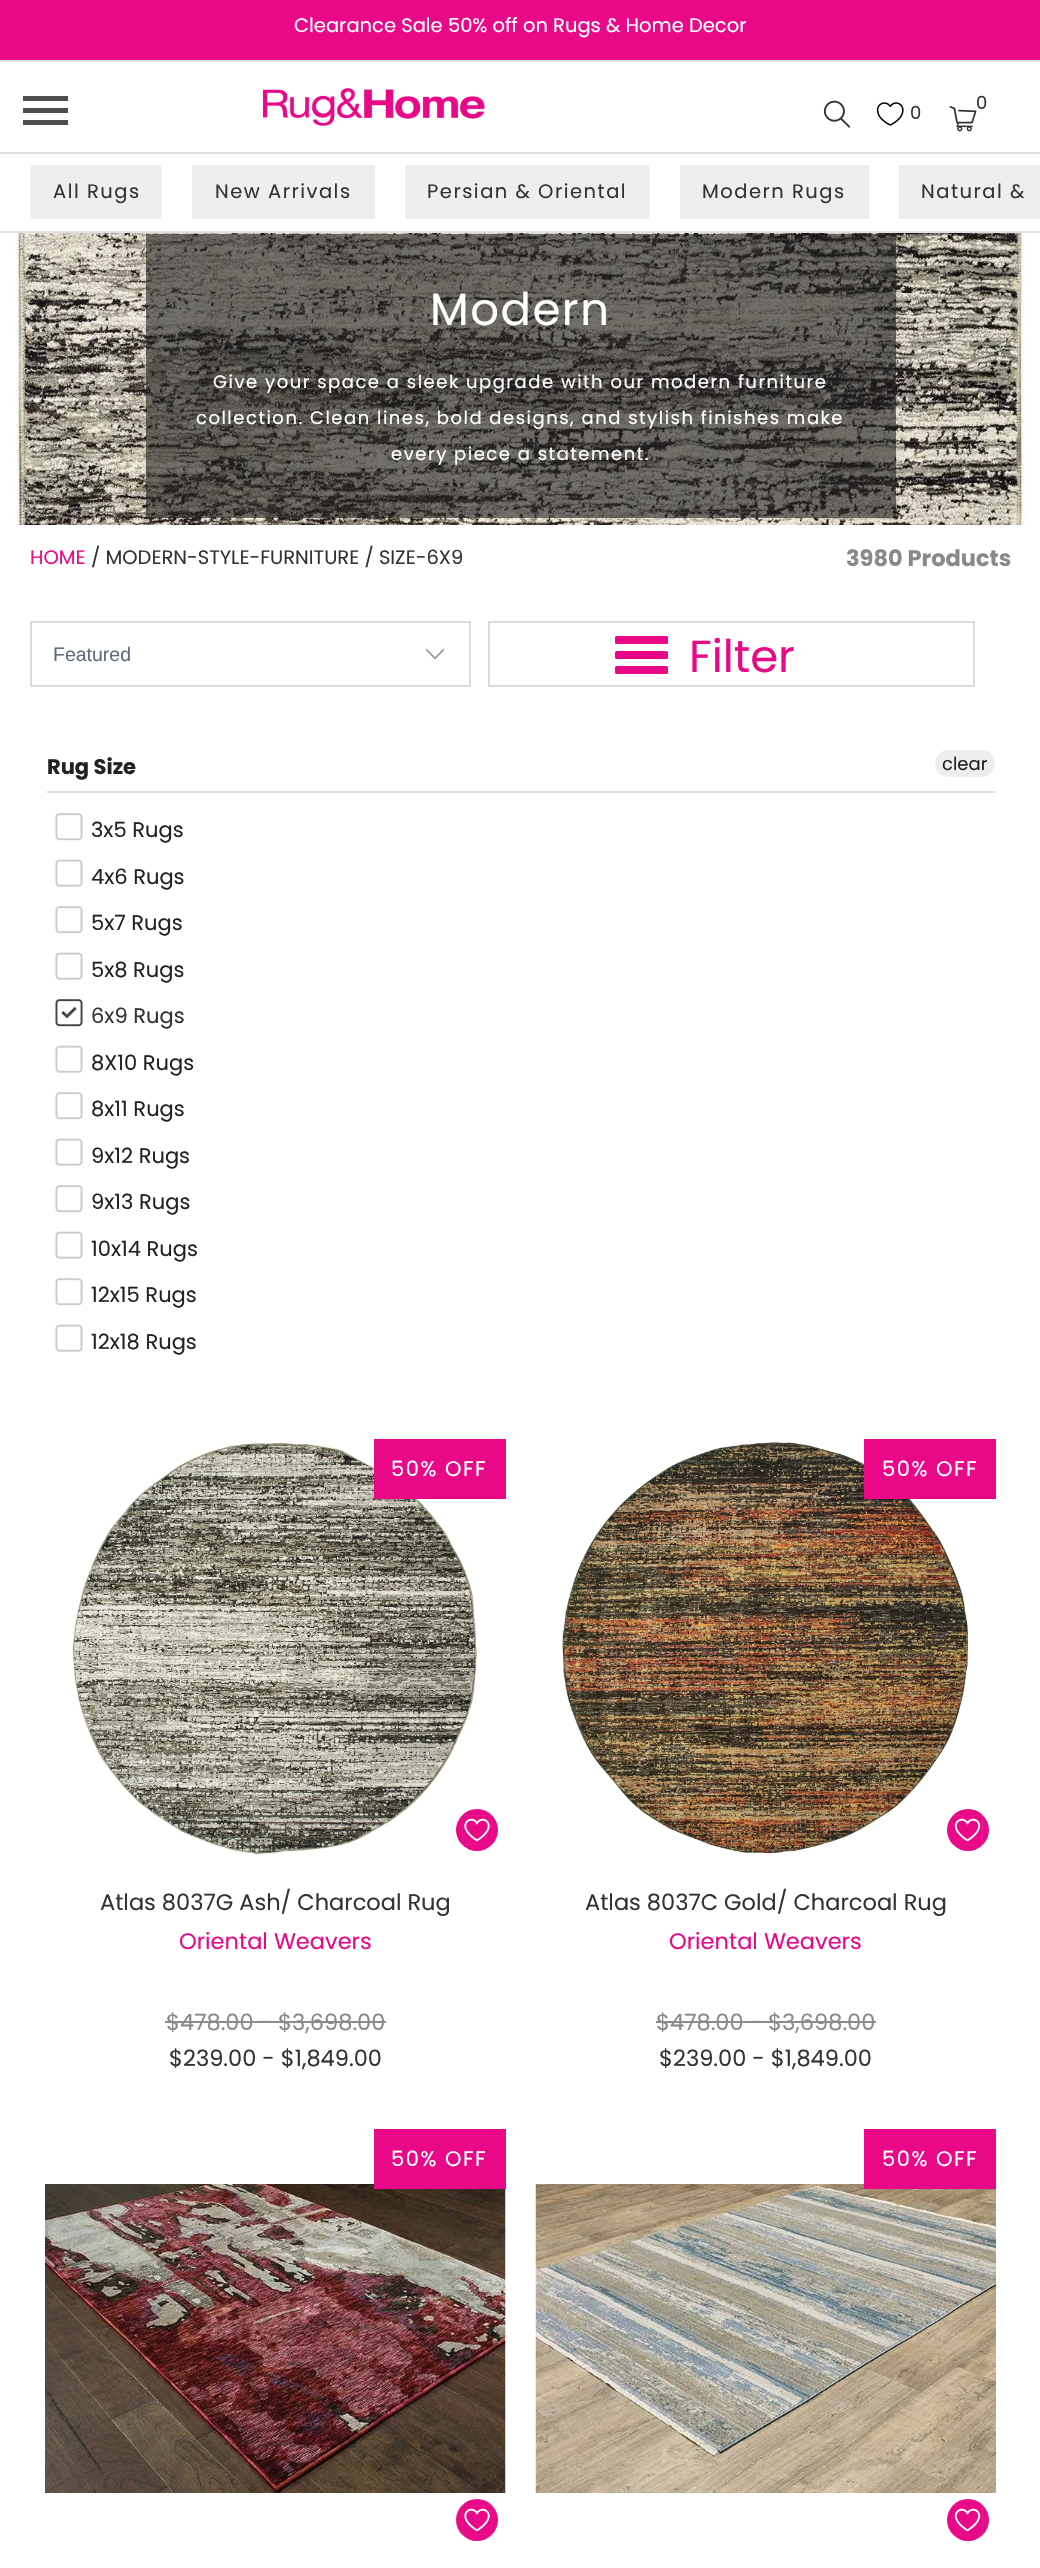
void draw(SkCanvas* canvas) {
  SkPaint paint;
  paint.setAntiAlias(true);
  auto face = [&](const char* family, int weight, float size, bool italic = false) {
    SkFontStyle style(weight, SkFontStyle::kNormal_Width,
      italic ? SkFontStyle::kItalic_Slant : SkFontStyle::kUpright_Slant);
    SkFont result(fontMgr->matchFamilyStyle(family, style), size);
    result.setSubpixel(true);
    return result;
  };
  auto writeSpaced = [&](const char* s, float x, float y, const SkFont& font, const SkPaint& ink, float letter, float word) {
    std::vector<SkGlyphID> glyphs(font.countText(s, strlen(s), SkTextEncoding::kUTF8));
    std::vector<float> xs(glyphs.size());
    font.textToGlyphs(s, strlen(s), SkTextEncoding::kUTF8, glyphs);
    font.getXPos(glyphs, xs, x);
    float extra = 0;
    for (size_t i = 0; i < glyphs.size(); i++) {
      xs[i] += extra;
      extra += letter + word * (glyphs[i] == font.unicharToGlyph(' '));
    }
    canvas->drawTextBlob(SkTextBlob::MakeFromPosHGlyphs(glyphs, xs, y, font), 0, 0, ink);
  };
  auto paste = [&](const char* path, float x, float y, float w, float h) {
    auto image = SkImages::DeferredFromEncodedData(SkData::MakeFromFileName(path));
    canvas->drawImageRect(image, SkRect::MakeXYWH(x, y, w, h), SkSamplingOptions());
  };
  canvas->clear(0xffffffff);
  {
    const struct { float x, y, w, h; SkColor color; } items[] = {
      {0, 0, 1040, 60, 0xffe80888},
      {0, 60, 1040, 2, 0xffe0e0e0},
      {0, 152, 1040, 2, 0xffe0e0e0},
      {23, 96, 45, 5, 0xff4f4f4f},
      {23, 108, 45, 5, 0xff4f4f4f},
      {23, 120, 45, 5, 0xff4f4f4f},
    };
    for (auto [x, y, w, h, color] : items) {
      paint.setColor(color);
      canvas->drawRect(SkRect::MakeXYWH(x, y, w, h), paint);
    }
  }
  paste("img/1.png", 262, 87, 223, 39);
  paste("img/2.png", 823, 100, 28, 28);
  paste("img/3.png", 876, 102, 28, 24);
  paste("img/4.png", 949, 106, 28, 26);
  {
    const struct { float x, y, w, h; SkColor color; } items[] = {
      {0, 231, 1040, 2, 0xffe0e0e0},
      {30, 165, 132, 54, 0xffeeeeee},
      {192, 165, 183, 54, 0xffeeeeee},
      {405, 165, 245, 54, 0xffeeeeee},
      {680, 165, 189, 54, 0xffeeeeee},
      {899, 165, 141, 54, 0xffeeeeee},
    };
    for (auto [x, y, w, h, color] : items) {
      paint.setColor(color);
      canvas->drawRect(SkRect::MakeXYWH(x, y, w, h), paint);
    }
  }
  paste("img/5.png", 0, 233, 1040, 292);
  paint.setColor(0x991e1e1e);
  canvas->drawRect(SkRect::MakeXYWH(146, 234, 750, 284), paint);
  paint.setStroke(true);
  paint.setStrokeWidth(2);
  paint.setColor(0xffd9dbdc);
  canvas->drawRect(SkRect::MakeXYWH(489, 622, 485, 64), paint);
  paint.setStroke(false);
  paint.setColor(0xffe80888);
  canvas->drawRoundRect(SkRect::MakeXYWH(615, 651, 53, 8), 1.5f, 1.5f, paint);
  canvas->drawRoundRect(SkRect::MakeXYWH(615, 636, 53, 8), 1.5f, 1.5f, paint);
  canvas->drawRoundRect(SkRect::MakeXYWH(615, 666, 53, 8), 1.5f, 1.5f, paint);
  paint.setColor(0xffdddddd);
  canvas->drawRect(SkRect::MakeXYWH(47, 791, 948, 2), paint);
  paint.setColor(0xffeeeeee);
  canvas->drawRoundRect(SkRect::MakeXYWH(935, 750, 60, 27), 13.5f, 13.5f, paint);
  paste("img/6.png", 55, 813, 28, 28);
  paste("img/7.png", 55, 859, 28, 28);
  paste("img/6.png", 55, 906, 28, 28);
  paste("img/7.png", 55, 952, 28, 28);
  paste("img/8.png", 55, 999, 28, 28);
  paste("img/7.png", 55, 1045, 28, 28);
  paste("img/6.png", 55, 1092, 28, 28);
  paste("img/7.png", 55, 1138, 28, 28);
  paste("img/6.png", 55, 1185, 28, 28);
  paste("img/7.png", 55, 1231, 28, 28);
  paste("img/6.png", 55, 1278, 28, 28);
  paste("img/7.png", 55, 1324, 28, 28);
  paste("img/9.png", 426, 648, 18, 12);
  paint.setStroke(true);
  paint.setColor(0xffd9dbdc);
  canvas->drawRect(SkRect::MakeXYWH(31, 622, 439, 64), paint);
  paste("img/10.png", 72, 1442, 406, 413);
  paint.setStroke(false);
  paint.setColor(0xffe80888);
  canvas->drawCircle(477, 1830, 21, paint);
  paste("img/11.png", 462, 1815, 30, 30);
  canvas->drawRect(SkRect::MakeXYWH(374, 1439, 132, 60), paint);
  paste("img/12.png", 562, 1442, 407, 412);
  canvas->drawCircle(968, 1830, 21, paint);
  paste("img/13.png", 953, 1815, 30, 30);
  canvas->drawRect(SkRect::MakeXYWH(864, 1439, 132, 60), paint);
  paste("img/14.png", 45, 2184, 461, 309);
  canvas->drawRect(SkRect::MakeXYWH(374, 2129, 132, 60), paint);
  canvas->drawCircle(477, 2520, 21, paint);
  paste("img/11.png", 462, 2505, 30, 30);
  paste("img/15.png", 535, 2184, 461, 309);
  canvas->drawRect(SkRect::MakeXYWH(864, 2129, 132, 60), paint);
  canvas->drawCircle(968, 2520, 21, paint);
  paste("img/13.png", 953, 2505, 30, 30);
  auto f0 = face("Poppins", 400, 19.5f);
  paint.setColor(0xffffffff);
  canvas->drawString("Clearance Sale 50% off on Rugs & Home Decor", 294, 32, f0, paint);
  auto f1 = face("Poppins", 400, 18);
  paint.setColor(0xff333333);
  canvas->drawString("0", 910, 119, f1, paint);
  writeSpaced("0", 976, 109, f1, paint, 1.5f, 0);
  {
    const struct { const char* s; float x, y; } items[] = {
      {"All Rugs", 53, 198},
      {"New Arrivals", 215, 198},
      {"Persian & Oriental", 427, 198},
      {"Modern Rugs", 702, 198},
      {"Natural &", 921, 198},
    };
    for (auto [s, x, y] : items) {
      writeSpaced(s, x, y, f0, paint, 1.5f, 0);
    }
  }
  auto f2 = face("Poppins", 400, 45);
  paint.setColor(0xffffffff);
  writeSpaced("Modern", 430, 325, f2, paint, 1.5f, 0);
  {
    const struct { const char* s; float x, y; } items[] = {
      {"Give your space a sleek upgrade with our modern furniture", 213, 388},
      {"collection. Clean lines, bold designs, and stylish finishes make", 196, 424},
      {"every piece a statement.", 391, 460},
    };
    for (auto [s, x, y] : items) {
      writeSpaced(s, x, y, f1, paint, 1.5f, 0);
    }
  }
  paint.setColor(0xffe80888);
  canvas->drawString("HOME", 30, 564, f0, paint);
  paint.setColor(0xff333333);
  canvas->drawString("/ MODERN-STYLE-FURNITURE / SIZE-6X9", 91, 564, f0, paint);
  auto f3 = face("Poppins", 700, 22.5f);
  paint.setColor(0xff898989);
  canvas->drawString("3980 Products", 846, 566, f3, paint);
  paint.setColor(0xffe80888);
  canvas->drawString("Filter", 689, 672, f2, paint);
  auto f4 = face("Poppins", 700, 21);
  paint.setColor(0xff222222);
  canvas->drawString("Rug Size", 47, 774, f4, paint);
  canvas->drawString("clear", 942, 770, f1, paint);
  auto f5 = face("Poppins", 400, 21);
  {
    const struct { const char* s; float x, y; } items[] = {
      {"3x5 Rugs", 91, 837},
      {"4x6 Rugs", 91, 884},
      {"5x7 Rugs", 91, 930},
      {"5x8 Rugs", 91, 977},
    };
    for (auto [s, x, y] : items) {
      canvas->drawString(s, x, y, f5, paint);
    }
  }
  paint.setColor(0xff333333);
  canvas->drawString("6x9 Rugs", 91, 1023, f5, paint);
  paint.setColor(0xff222222);
  {
    const struct { const char* s; float x, y; } items[] = {
      {"8X10 Rugs", 91, 1070},
      {"8x11 Rugs", 91, 1116},
      {"9x12 Rugs", 91, 1163},
      {"9x13 Rugs", 91, 1209},
      {"10x14 Rugs", 91, 1256},
      {"12x15 Rugs", 91, 1302},
      {"12x18 Rugs", 91, 1349},
    };
    for (auto [s, x, y] : items) {
      canvas->drawString(s, x, y, f5, paint);
    }
  }
  auto f6 = face("Liberation Sans", 400, 19.5f);
  paint.setColor(0xff5f6a7d);
  canvas->drawString("Featured", 53, 661, f6, paint);
  paint.setColor(0xffffffff);
  writeSpaced("50% OFF", 391, 1476, f5, paint, 1.5f, 0);
  auto f7 = face("Poppins", 400, 22.5f);
  paint.setColor(0xff333333);
  canvas->drawString("Atlas 8037G Ash/ Charcoal Rug", 100, 1910, f7, paint);
  paint.setColor(0xffe80888);
  canvas->drawString("Oriental Weavers", 179, 1949, f7, paint);
  paint.setColor(0xff898989);
  canvas->drawString("$478.00 - $3,698.00", 166, 2030, f7, paint);
  paint.setColor(0xff8c8b8b);
  canvas->drawRect(SkRect::MakeXYWH(165, 2021, 221, 2), paint);
  paint.setColor(0xff333333);
  canvas->drawString("$239.00 - $1,849.00", 169, 2066, f7, paint);
  paint.setColor(0xffffffff);
  writeSpaced("50% OFF", 882, 1476, f5, paint, 1.5f, 0);
  paint.setColor(0xff333333);
  canvas->drawString("Atlas 8037C Gold/ Charcoal Rug", 585, 1910, f7, paint);
  paint.setColor(0xffe80888);
  canvas->drawString("Oriental Weavers", 669, 1949, f7, paint);
  paint.setColor(0xff898989);
  canvas->drawString("$478.00 - $3,698.00", 656, 2030, f7, paint);
  paint.setColor(0xff8c8b8b);
  canvas->drawRect(SkRect::MakeXYWH(656, 2021, 220, 2), paint);
  paint.setColor(0xff333333);
  canvas->drawString("$239.00 - $1,849.00", 659, 2066, f7, paint);
  paint.setColor(0xffffffff);
  writeSpaced("50% OFF", 391, 2166, f5, paint, 1.5f, 0);
  writeSpaced("50% OFF", 882, 2166, f5, paint, 1.5f, 0);
}
